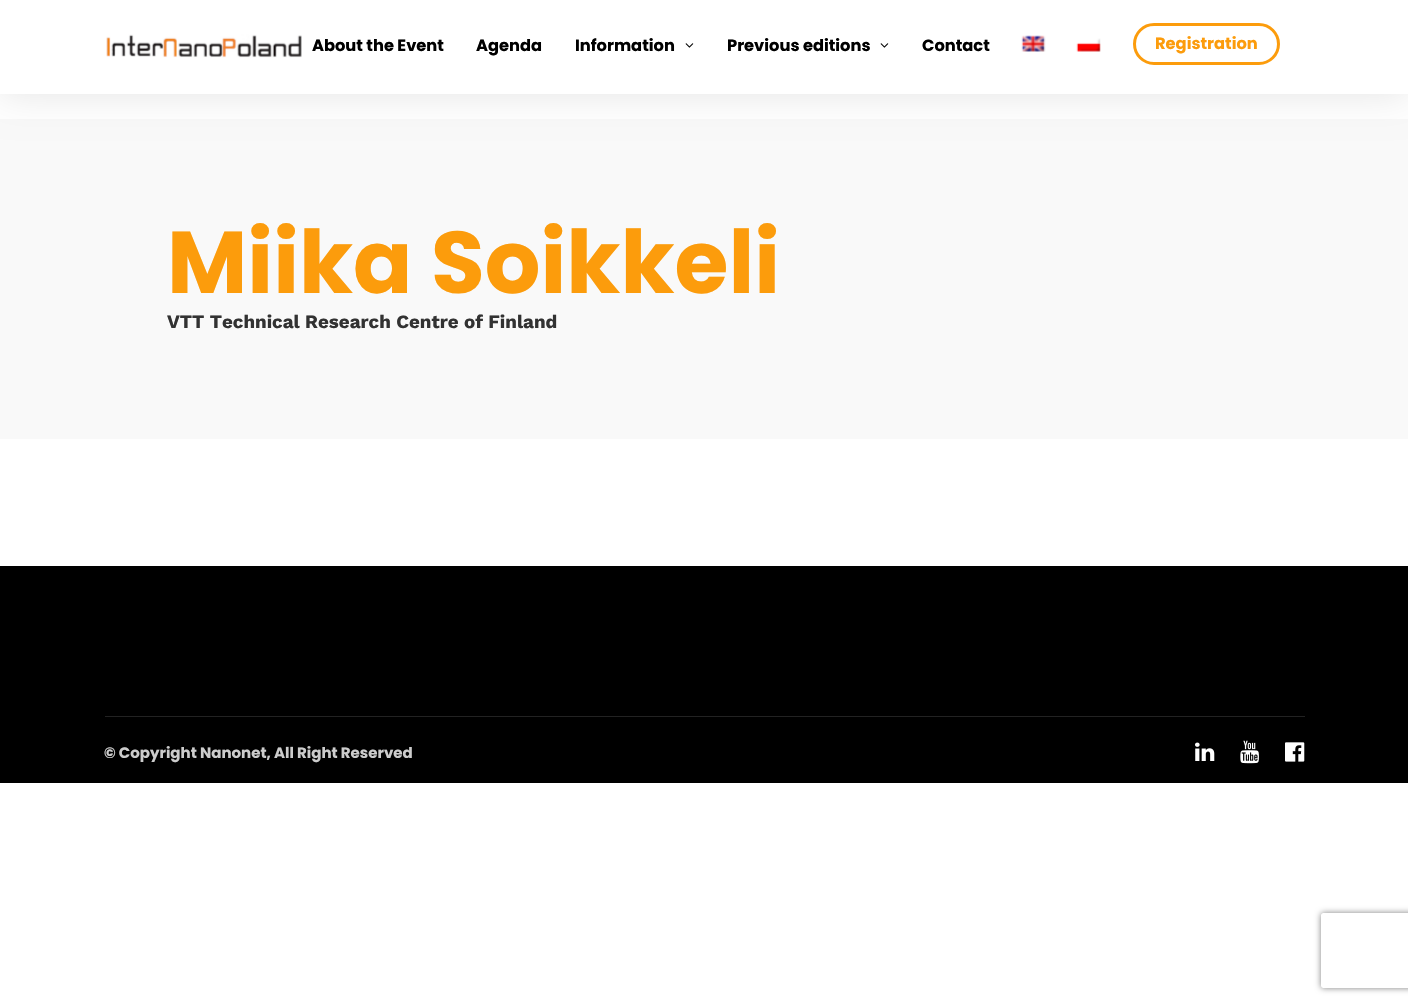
void draw(SkCanvas* canvas) {
  SkPaint paint;
  paint.setAntiAlias(true);
  auto face = [&](const char* family, int weight, float size, bool italic = false) {
    SkFontStyle style(weight, SkFontStyle::kNormal_Width,
      italic ? SkFontStyle::kItalic_Slant : SkFontStyle::kUpright_Slant);
    SkFont result(fontMgr->matchFamilyStyle(family, style), size);
    result.setSubpixel(true);
    return result;
  };
  auto paste = [&](const char* path, float x, float y, float w, float h) {
    auto image = SkImages::DeferredFromEncodedData(SkData::MakeFromFileName(path));
    canvas->drawImageRect(image, SkRect::MakeXYWH(x, y, w, h), SkSamplingOptions());
  };
  auto shape = [&](const char* data, bool evenOdd = false) {
    SkPath result = *SkParsePath::FromSVGString(data);
    if (evenOdd) result.setFillType(SkPathFillType::kEvenOdd);
    return result;
  };
  canvas->clear(0xffffffff);
  paint.setColor(0xfff9f9f9);
  canvas->drawRect(SkRect::MakeXYWH(0, 119, 1408, 320), paint);
  paint.setColor(0x1a000000);
  paint.setMaskFilter(SkMaskFilter::MakeBlur(kNormal_SkBlurStyle, 19));
  canvas->drawRect(SkRect::MakeXYWH(0, 1, 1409, 94), paint);
  paint.setMaskFilter(nullptr);
  paint.setColor(0xffffffff);
  canvas->drawRect(SkRect::MakeXYWH(0, 0, 1408, 94), paint);
  paste("img/1.png", 106, 34, 196, 24);
  paste("img/2.png", 685, 43, 9, 5);
  paste("img/2.png", 880, 43, 9, 5);
  paste("img/3.png", 1021, 35, 25, 17);
  paste("img/4.png", 1076, 38, 25, 14);
  paint.setStroke(true);
  paint.setStrokeWidth(3);
  paint.setColor(0xfffc9c0c);
  canvas->drawRoundRect(SkRect::MakeXYWH(1134.5f, 24.5f, 144, 39), 19.5f, 19.5f, paint);
  paint.setStroke(false);
  paint.setColor(0xff000000);
  canvas->drawRect(SkRect::MakeXYWH(0, 566, 1408, 217), paint);
  paint.setColor(0xff222222);
  canvas->drawRect(SkRect::MakeXYWH(105, 716, 1200, 1), paint);
  paste("img/5.png", 1195, 742, 20, 19);
  paste("img/6.png", 1240, 740, 19, 24);
  paste("img/7.png", 1285, 742, 20, 20);
  canvas->save();
  canvas->clipPath(shape("M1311 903H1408V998H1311ZM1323.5 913H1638.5C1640 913 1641 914 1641 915.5V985.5C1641 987 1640 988 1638.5 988H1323.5C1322 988 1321 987 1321 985.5V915.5C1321 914 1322 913 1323.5 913Z", true), true);
  paint.setColor(0xff808080);
  paint.setMaskFilter(SkMaskFilter::MakeBlur(kNormal_SkBlurStyle, 3));
  canvas->drawRoundRect(SkRect::MakeXYWH(1321, 913, 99, 75), 2.5f, 2.5f, paint);
  paint.setMaskFilter(nullptr);
  canvas->restore();
  auto f0 = face("Poppins", 700, 16.25f);
  paint.setColor(0xff000000);
  {
    const struct { const char* s; float x, y; } items[] = {
      {"About the Event", 312, 51},
      {"Agenda", 476, 51},
      {"Information", 575, 51},
      {"Previous editions", 727, 51},
      {"Contact", 922, 51},
    };
    for (auto [s, x, y] : items) {
      canvas->drawString(s, x, y, f0, paint);
    }
  }
  paint.setColor(0xfffc9c0c);
  canvas->drawString("Registration", 1155, 49, f0, paint);
  auto f1 = face("Poppins", 700, 87.5f);
  canvas->drawString("Miika Soikkeli", 167, 293, f1, paint);
  auto f2 = face("Work Sans", 700, 18.75f);
  paint.setColor(0xff323232);
  canvas->drawString("VTT Technical Research Centre of Finland", 167, 328, f2, paint);
  auto f3 = face("Poppins", 700, 15);
  paint.setColor(0xffcccccc);
  canvas->drawString("© Copyright Nanonet, All Right Reserved", 104, 758, f3, paint);
}
